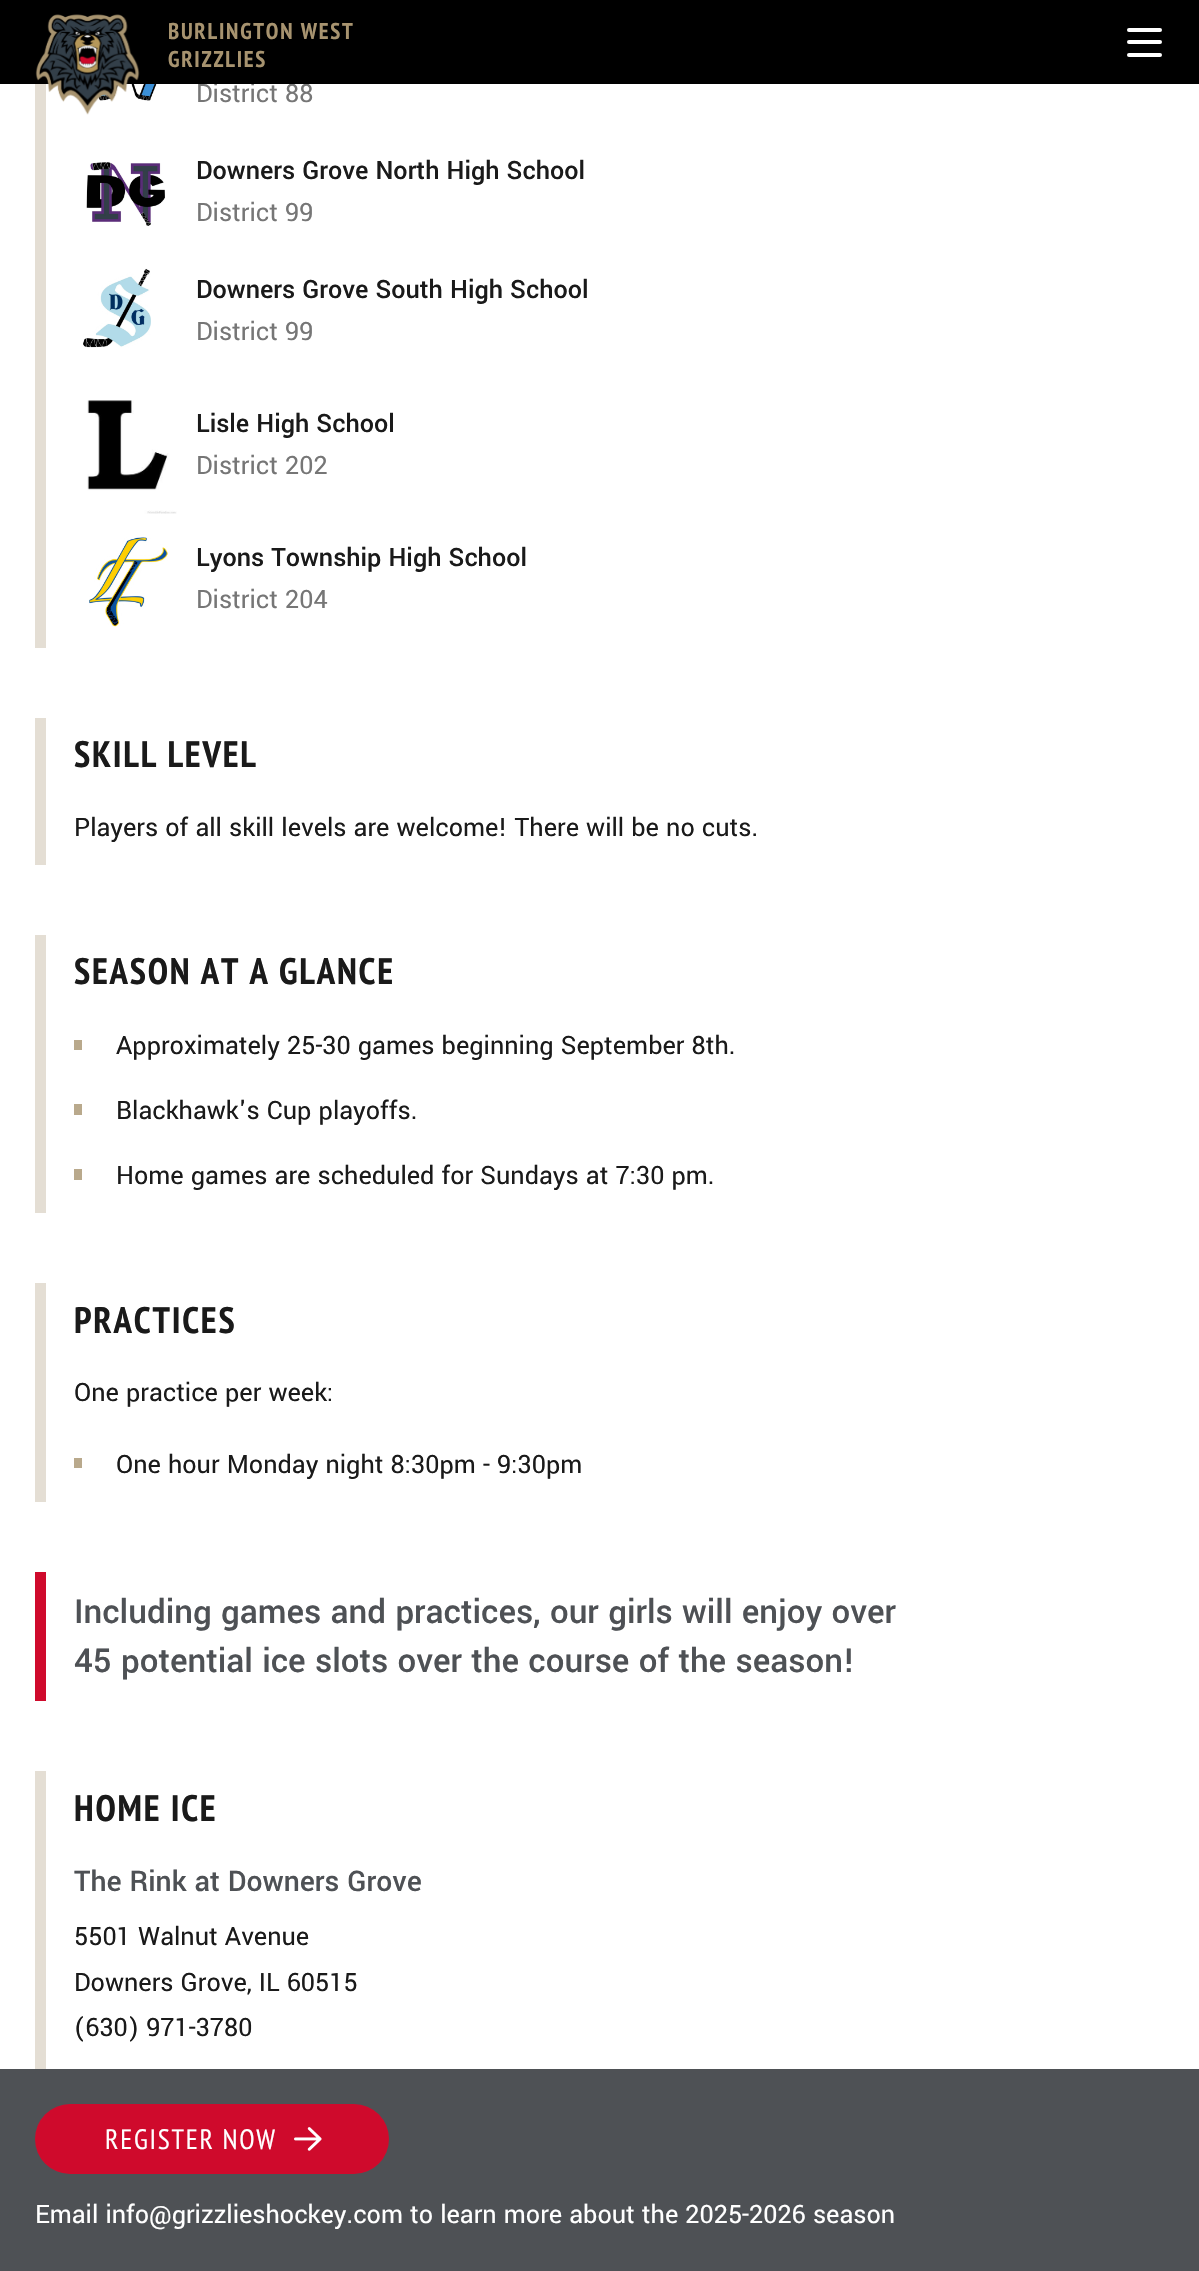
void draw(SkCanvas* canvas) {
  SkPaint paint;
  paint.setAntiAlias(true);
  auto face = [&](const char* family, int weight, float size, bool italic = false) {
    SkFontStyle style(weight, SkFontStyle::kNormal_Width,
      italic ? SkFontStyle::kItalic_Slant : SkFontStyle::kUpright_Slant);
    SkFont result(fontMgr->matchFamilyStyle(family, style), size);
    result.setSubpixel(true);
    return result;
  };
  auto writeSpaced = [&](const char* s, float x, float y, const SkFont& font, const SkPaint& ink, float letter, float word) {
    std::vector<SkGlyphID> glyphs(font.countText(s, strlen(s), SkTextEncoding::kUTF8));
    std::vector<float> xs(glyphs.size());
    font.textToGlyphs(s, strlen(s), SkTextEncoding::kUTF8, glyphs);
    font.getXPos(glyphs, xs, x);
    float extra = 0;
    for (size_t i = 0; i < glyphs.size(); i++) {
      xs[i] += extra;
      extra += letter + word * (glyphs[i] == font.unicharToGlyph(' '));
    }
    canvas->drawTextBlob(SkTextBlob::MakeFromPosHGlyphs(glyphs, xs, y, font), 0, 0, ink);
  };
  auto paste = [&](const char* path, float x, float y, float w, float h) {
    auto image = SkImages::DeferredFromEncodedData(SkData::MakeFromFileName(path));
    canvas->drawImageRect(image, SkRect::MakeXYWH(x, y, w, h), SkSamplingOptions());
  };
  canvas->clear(0xffffffff);
  paint.setColor(0xffe4ded4);
  canvas->drawRect(SkRect::MakeXYWH(35, 84, 11, 564), paint);
  paste("img/2.png", 96, 84, 63, 17);
  paste("img/3.png", 86, 162, 79, 64);
  paste("img/4.png", 83, 268, 68, 80);
  paste("img/5.png", 87, 400, 90, 114);
  paste("img/6.png", 89, 537, 79, 90);
  {
    const struct { float x, y, w, h; SkColor color; } items[] = {
      {35, 718, 11, 147, 0xffe4ded4},
      {35, 935, 11, 278, 0xffe4ded4},
      {74, 1040, 8, 10, 0xffb9a98c},
      {74, 1104, 8, 11, 0xffb9a98c},
      {74, 1169, 8, 11, 0xffb9a98c},
      {35, 1283, 11, 219, 0xffe4ded4},
      {74, 1458, 8, 10, 0xffb9a98c},
      {35, 1572, 11, 129, 0xffcf0a2c},
      {35, 1771, 11, 298, 0xffe4ded4},
      {0, 2069, 1199, 202, 0xff4e5155},
    };
    for (auto [x, y, w, h, color] : items) {
      paint.setColor(color);
      canvas->drawRect(SkRect::MakeXYWH(x, y, w, h), paint);
    }
  }
  paint.setColor(0xffcf0a2c);
  canvas->drawRoundRect(SkRect::MakeXYWH(35, 2104, 354, 70), 35, 35, paint);
  paste("img/7.png", 294, 2127, 28, 24);
  auto f0 = face("Yantramanav", 400, 28);
  paint.setColor(0xff767676);
  canvas->drawString("District 88", 196, 102, f0, paint);
  paint.setColor(0xff000000);
  canvas->drawRect(SkRect::MakeXYWH(0, 0, 1199, 84), paint);
  paint.setColor(0xffffffff);
  canvas->drawRoundRect(SkRect::MakeXYWH(1127, 53, 35, 4), 2, 2, paint);
  canvas->drawRoundRect(SkRect::MakeXYWH(1127, 40, 35, 4), 2, 2, paint);
  canvas->drawRoundRect(SkRect::MakeXYWH(1127, 28, 35, 4), 2, 2, paint);
  auto f1 = face("PT Sans Narrow", 700, 22.75f);
  paint.setColor(0xffa7936f);
  writeSpaced("GRIZZLIES", 168, 67, f1, paint, 1.75f, 0);
  writeSpaced("BURLINGTON WEST", 168, 39, f1, paint, 1.75f, 0);
  paste("img/1.png", 35, 14, 105, 101);
  auto f2 = face("Yantramanav", 500, 28);
  paint.setColor(0xff1a1a1a);
  canvas->drawString("Downers Grove North High School", 196, 179, f2, paint);
  paint.setColor(0xff767676);
  canvas->drawString("District 99", 196, 221, f0, paint);
  paint.setColor(0xff1a1a1a);
  canvas->drawString("Downers Grove South High School", 196, 298, f2, paint);
  paint.setColor(0xff767676);
  canvas->drawString("District 99", 196, 340, f0, paint);
  paint.setColor(0xff1a1a1a);
  canvas->drawString("Lisle High School", 196, 432, f2, paint);
  paint.setColor(0xff767676);
  canvas->drawString("District 202", 196, 474, f0, paint);
  paint.setColor(0xff1a1a1a);
  canvas->drawString("Lyons Township High School", 196, 566, f2, paint);
  paint.setColor(0xff767676);
  canvas->drawString("District 204", 196, 608, f0, paint);
  auto f3 = face("PT Sans Narrow", 700, 36.75f);
  paint.setColor(0xff1a1a1a);
  writeSpaced("SKILL LEVEL", 74, 767, f3, paint, 1.8f, 0);
  canvas->drawString("Players of all skill levels are welcome! There will be no cuts.", 74, 836, f0, paint);
  writeSpaced("SEASON AT A GLANCE", 74, 984, f3, paint, 1.8f, 0);
  {
    const struct { const char* s; float x, y; } items[] = {
      {"Approximately 25-30 games beginning September 8th.", 116, 1054},
      {"Blackhawk's Cup playoffs.", 116, 1119},
      {"Home games are scheduled for Sundays at 7:30 pm.", 116, 1184},
    };
    for (auto [s, x, y] : items) {
      canvas->drawString(s, x, y, f0, paint);
    }
  }
  writeSpaced("PRACTICES", 74, 1333, f3, paint, 1.8f, 0);
  canvas->drawString("One practice per week:", 74, 1401, f0, paint);
  canvas->drawString("One hour Monday night 8:30pm - 9:30pm", 116, 1473, f0, paint);
  auto f4 = face("Yantramanav", 500, 36.75f);
  paint.setColor(0xff4e5155);
  canvas->drawString("Including games and practices, our girls will enjoy over", 74, 1623, f4, paint);
  canvas->drawString("45 potential ice slots over the course of the season!", 74, 1672, f4, paint);
  paint.setColor(0xff1a1a1a);
  writeSpaced("HOME ICE", 74, 1821, f3, paint, 1.8f, 0);
  auto f5 = face("Yantramanav", 500, 31.5f);
  paint.setColor(0xff4e5155);
  canvas->drawString("The Rink at Downers Grove", 74, 1891, f5, paint);
  paint.setColor(0xff1a1a1a);
  {
    const struct { const char* s; float x, y; } items[] = {
      {"5501 Walnut Avenue", 74, 1945},
      {"Downers Grove, IL 60515", 74, 1991},
      {"(630) 971-3780", 74, 2036},
    };
    for (auto [s, x, y] : items) {
      canvas->drawString(s, x, y, f0, paint);
    }
  }
  auto f6 = face("PT Sans Narrow", 400, 28);
  paint.setColor(0xffffffff);
  writeSpaced("REGISTER NOW", 105, 2149, f6, paint, 1.75f, 0);
  canvas->drawString("Email info@grizzlieshockey.com to learn more about the 2025-2026 season", 35, 2223, f0, paint);
}
